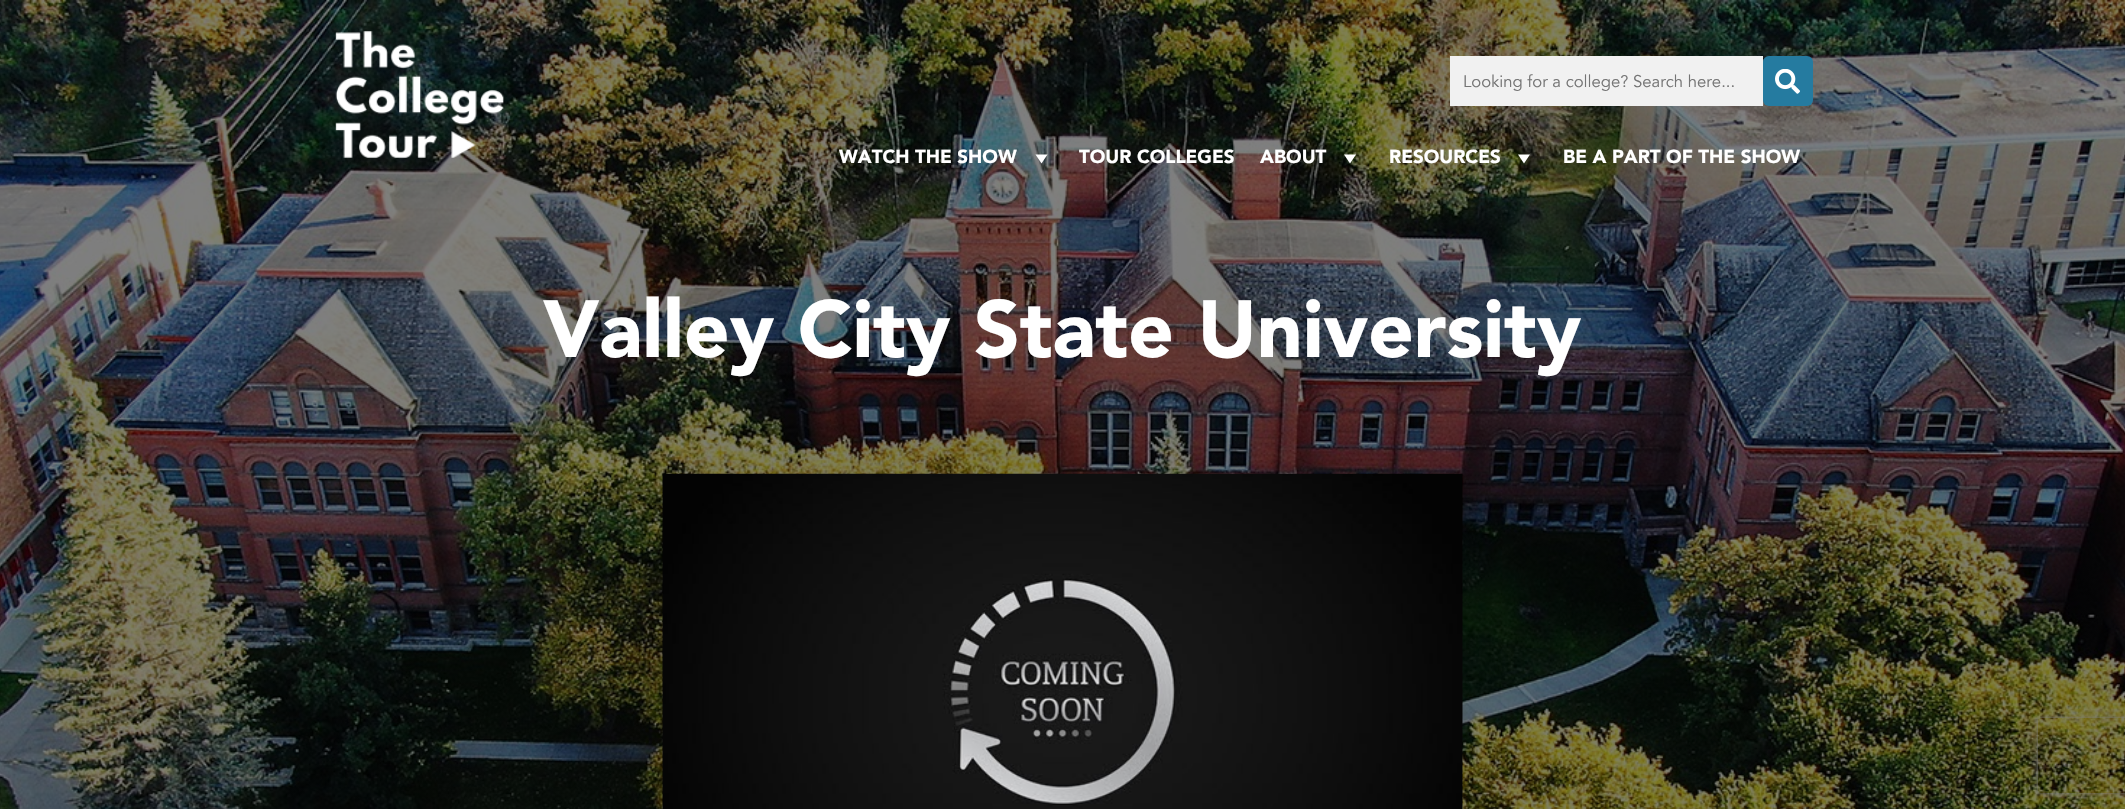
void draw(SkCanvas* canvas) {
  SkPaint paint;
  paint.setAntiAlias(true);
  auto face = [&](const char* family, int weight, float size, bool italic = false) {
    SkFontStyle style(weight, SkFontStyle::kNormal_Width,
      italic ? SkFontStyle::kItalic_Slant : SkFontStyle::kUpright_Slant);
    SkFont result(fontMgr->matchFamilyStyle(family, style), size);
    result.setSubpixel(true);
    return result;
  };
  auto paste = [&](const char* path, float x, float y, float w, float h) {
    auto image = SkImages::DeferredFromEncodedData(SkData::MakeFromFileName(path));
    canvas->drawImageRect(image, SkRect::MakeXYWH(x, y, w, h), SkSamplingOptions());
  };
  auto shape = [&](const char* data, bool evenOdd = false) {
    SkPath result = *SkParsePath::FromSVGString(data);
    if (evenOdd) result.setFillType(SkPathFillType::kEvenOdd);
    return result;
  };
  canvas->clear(0xffffffff);
  paste("img/3.png", 0, 0, 2125, 809);
  paste("img/1.png", 335, 31, 169, 127);
  paint.setColor(0xfff1f1f1);
  canvas->drawRect(SkRect::MakeXYWH(1450, 56, 313, 50), paint);
  paint.setColor(0xff257ba0);
  canvas->drawRoundRect(SkRect::MakeXYWH(1763, 56, 50, 50), 6, 6, paint);
  paste("img/2.png", 1775, 69, 25, 25);
  paint.setColor(0xffffffff);
  canvas->drawPath(shape("M1047.5 154.5L1041.5 163.5L1035.5 154.5Z"), paint);
  canvas->drawPath(shape("M1356 154.5L1350 163.5L1344 154.5Z"), paint);
  canvas->drawPath(shape("M1530 154.5L1524 163.5L1518 154.5Z"), paint);
  paste("img/4.png", 662, 473, 801, 336);
  canvas->save();
  canvas->clipPath(shape("M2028 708H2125V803H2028ZM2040.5 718H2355.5C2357 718 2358 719 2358 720.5V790.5C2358 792 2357 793 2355.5 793H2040.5C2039 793 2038 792 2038 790.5V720.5C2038 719 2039 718 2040.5 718Z", true), true);
  paint.setColor(0xff808080);
  paint.setMaskFilter(SkMaskFilter::MakeBlur(kNormal_SkBlurStyle, 3));
  canvas->drawRoundRect(SkRect::MakeXYWH(2038, 718, 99, 75), 2.5f, 2.5f, paint);
  paint.setMaskFilter(nullptr);
  canvas->restore();
  auto f0 = face("Avenir", 400, 16.7f);
  paint.setColor(0xff757575);
  canvas->drawString("Looking for a college? Search here...", 1463, 87, f0, paint);
  auto f1 = face("Avenir", 900, 18.75f);
  paint.setColor(0xffffffff);
  {
    const struct { const char* s; float x, y; } items[] = {
      {"WATCH THE SHOW", 839, 163},
      {"TOUR COLLEGES", 1079, 163},
      {"ABOUT", 1260, 163},
      {"RESOURCES", 1389, 163},
      {"BE A PART OF THE SHOW", 1563, 163},
    };
    for (auto [s, x, y] : items) {
      canvas->drawString(s, x, y, f1, paint);
    }
  }
  auto f2 = face("Avenir", 900, 80);
  canvas->drawString("Valley City State University", 543, 357, f2, paint);
}
